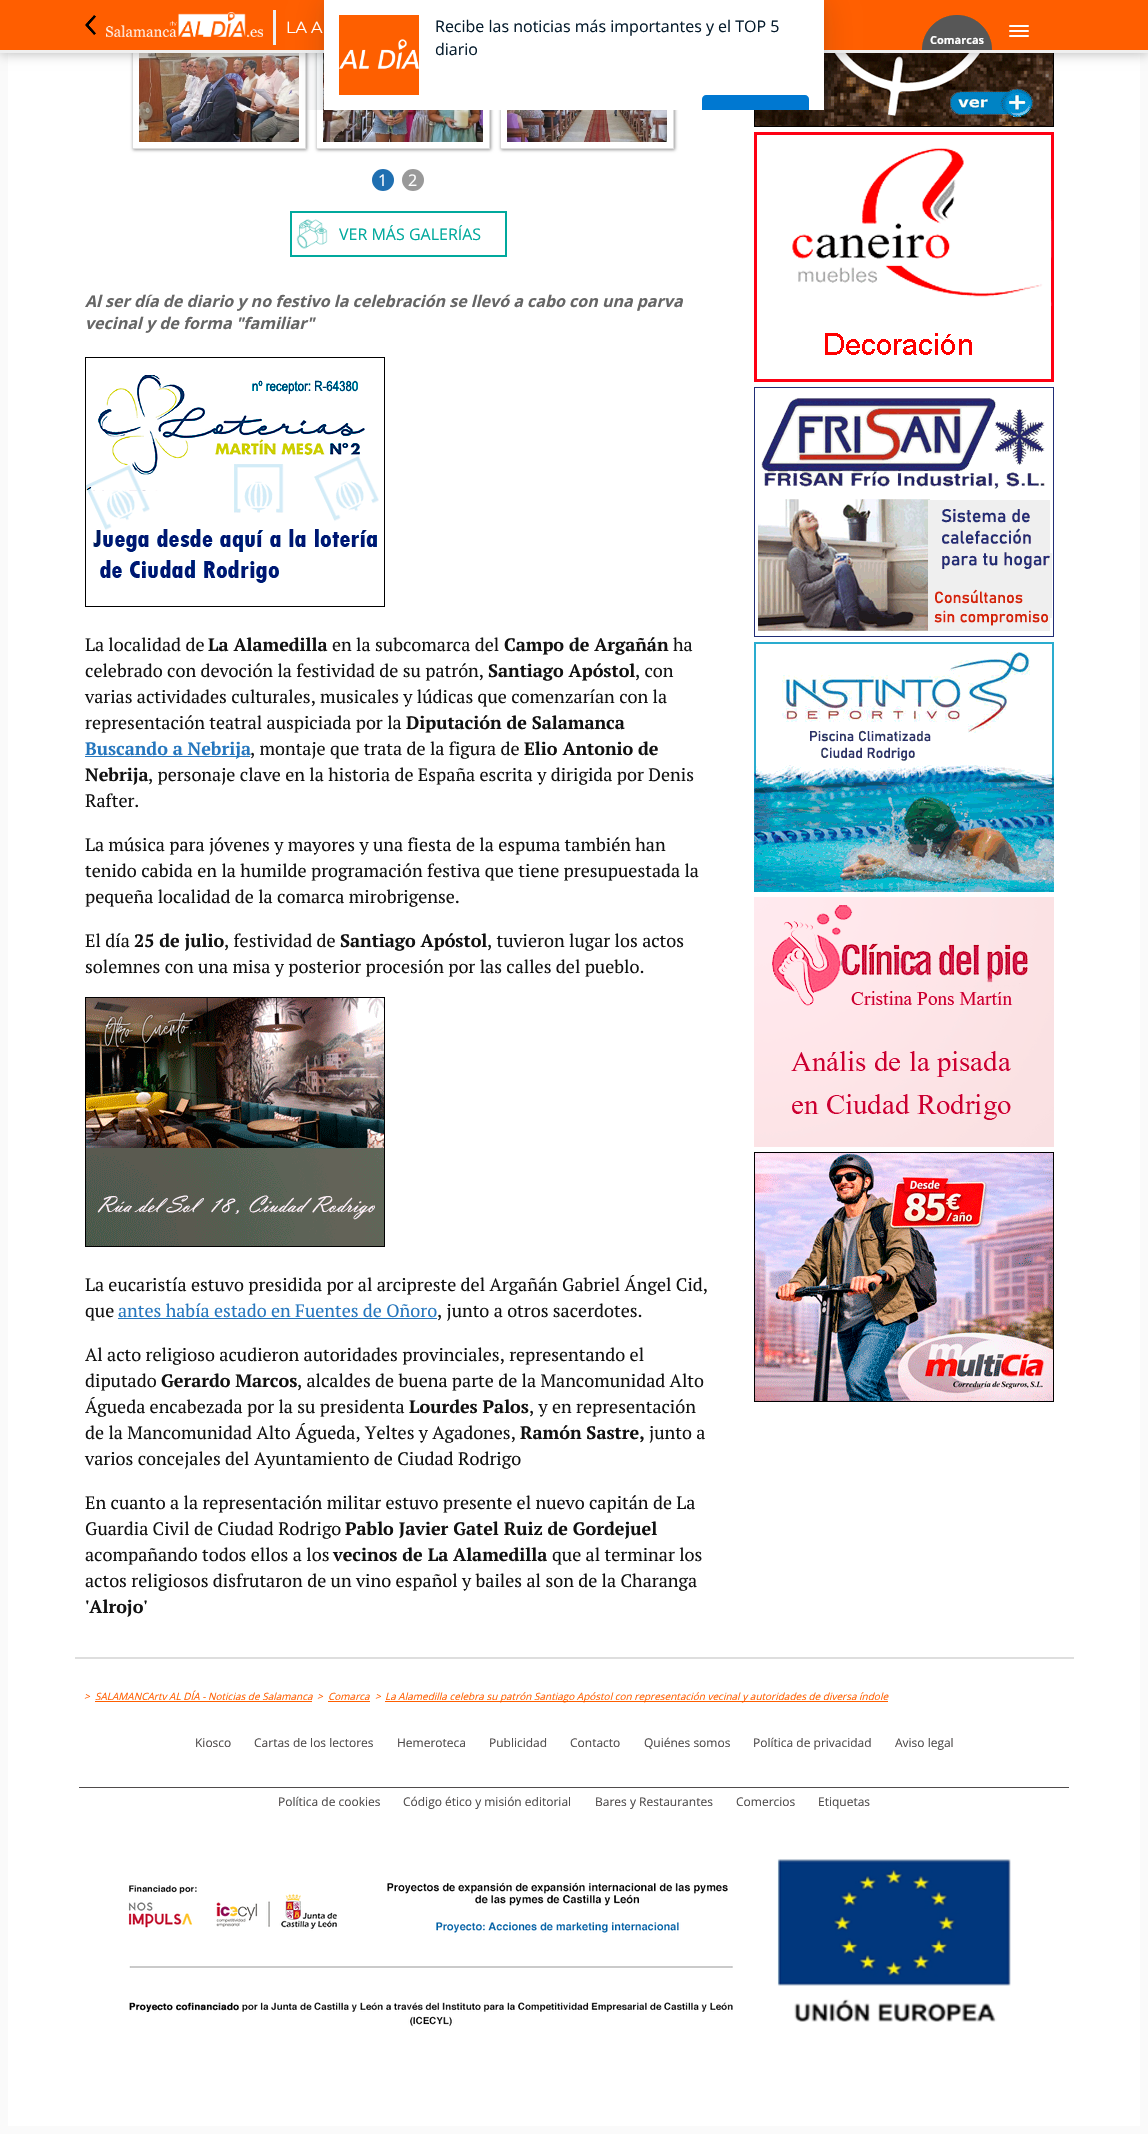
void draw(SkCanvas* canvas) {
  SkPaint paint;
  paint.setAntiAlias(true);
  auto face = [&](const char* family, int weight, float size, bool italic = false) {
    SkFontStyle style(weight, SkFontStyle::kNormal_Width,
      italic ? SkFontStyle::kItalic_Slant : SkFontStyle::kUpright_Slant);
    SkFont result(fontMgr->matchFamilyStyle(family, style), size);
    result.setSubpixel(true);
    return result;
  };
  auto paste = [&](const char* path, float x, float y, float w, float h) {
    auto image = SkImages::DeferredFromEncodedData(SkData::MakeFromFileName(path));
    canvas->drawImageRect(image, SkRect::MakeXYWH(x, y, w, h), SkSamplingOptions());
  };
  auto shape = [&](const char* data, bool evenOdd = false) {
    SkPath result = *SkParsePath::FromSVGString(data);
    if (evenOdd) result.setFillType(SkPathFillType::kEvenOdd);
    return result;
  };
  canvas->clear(0xfffafafa);
  paint.setColor(0xffffffff);
  canvas->drawRect(SkRect::MakeXYWH(8, 53, 1132, 2073), paint);
  canvas->save();
  canvas->clipPath(shape("M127 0H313V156H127ZM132 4H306V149H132Z", true), true);
  paint.setColor(0xff999999);
  paint.setMaskFilter(SkMaskFilter::MakeBlur(kNormal_SkBlurStyle, 1.5f));
  canvas->drawRect(SkRect::MakeXYWH(133, 5, 174, 145), paint);
  paint.setMaskFilter(nullptr);
  canvas->restore();
  paint.setStroke(true);
  paint.setStrokeWidth(1);
  paint.setColor(0xffdddddd);
  canvas->drawRect(SkRect::MakeXYWH(132.5f, 4.5f, 173, 144), paint);
  paste("img/5.png", 139, 53, 160, 89);
  canvas->save();
  canvas->clipPath(shape("M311 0H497V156H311ZM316 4H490V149H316Z", true), true);
  paint.setStroke(false);
  paint.setColor(0xff999999);
  paint.setMaskFilter(SkMaskFilter::MakeBlur(kNormal_SkBlurStyle, 1.5f));
  canvas->drawRect(SkRect::MakeXYWH(317, 5, 174, 145), paint);
  paint.setMaskFilter(nullptr);
  canvas->restore();
  paint.setStroke(true);
  paint.setColor(0xffdddddd);
  canvas->drawRect(SkRect::MakeXYWH(316.5f, 4.5f, 173, 144), paint);
  paste("img/6.png", 323, 53, 160, 89);
  canvas->save();
  canvas->clipPath(shape("M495 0H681V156H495ZM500 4H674V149H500Z", true), true);
  paint.setStroke(false);
  paint.setColor(0xff999999);
  paint.setMaskFilter(SkMaskFilter::MakeBlur(kNormal_SkBlurStyle, 1.5f));
  canvas->drawRect(SkRect::MakeXYWH(501, 5, 174, 145), paint);
  paint.setMaskFilter(nullptr);
  canvas->restore();
  paint.setStroke(true);
  paint.setColor(0xffdddddd);
  canvas->drawRect(SkRect::MakeXYWH(500.5f, 4.5f, 173, 144), paint);
  paste("img/11.png", 754, 53, 300, 74);
  paint.setStroke(false);
  paint.setColor(0x4d000000);
  paint.setMaskFilter(SkMaskFilter::MakeBlur(kNormal_SkBlurStyle, 6));
  canvas->drawRect(SkRect::MakeXYWH(0, 0, 1148, 53), paint);
  paint.setMaskFilter(nullptr);
  {
    const struct { float x, y, w, h; SkColor color; } items[] = {
      {0, 0, 1148, 50, 0xffff5e00},
      {0, 50, 1148, 3, 0xffefefef},
      {273, 10, 3, 35, 0xffefefef},
    };
    for (auto [x, y, w, h, color] : items) {
      paint.setColor(color);
      canvas->drawRect(SkRect::MakeXYWH(x, y, w, h), paint);
    }
  }
  paste("img/7.png", 507, 110, 160, 32);
  paint.setColor(0xff1f6fb1);
  canvas->drawCircle(383, 180, 11, paint);
  paint.setColor(0xff999999);
  canvas->drawCircle(413, 180, 11, paint);
  paste("img/12.png", 754, 132, 300, 250);
  canvas->save();
  canvas->clipRect(SkRect::MakeXYWH(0, 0, 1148, 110));
  paint.setColor(0x29051b2c);
  paint.setMaskFilter(SkMaskFilter::MakeBlur(kNormal_SkBlurStyle, 16));
  canvas->drawRoundRect(SkRect::MakeXYWH(324, 2, 500, 160), 8, 8, paint);
  paint.setMaskFilter(nullptr);
  paint.setColor(0x0f051b2c);
  paint.setMaskFilter(SkMaskFilter::MakeBlur(kNormal_SkBlurStyle, 3));
  canvas->drawRoundRect(SkRect::MakeXYWH(324, 1, 500, 160), 8, 8, paint);
  paint.setMaskFilter(nullptr);
  canvas->restore();
  paint.setColor(0xffffffff);
  canvas->drawRect(SkRect::MakeXYWH(324, 0, 500, 110), paint);
  paste("img/1.png", 339, 15, 80, 80);
  paint.setColor(0xff0078d1);
  canvas->drawPath(shape("M706 95H805C807 95 809 97 809 99V110H702V99C702 97 704 95 706 95Z"), paint);
  paste("img/2.png", 85, 15, 11, 20);
  paste("img/3.png", 106, 12, 157, 25);
  paint.setColor(0xffffffff);
  canvas->drawRoundRect(SkRect::MakeXYWH(1009, 30, 20, 2), 1, 1, paint);
  canvas->drawRoundRect(SkRect::MakeXYWH(1009, 25, 20, 2), 1, 1, paint);
  canvas->drawRoundRect(SkRect::MakeXYWH(1009, 35, 20, 2), 1, 1, paint);
  paste("img/4.png", 922, 15, 70, 35);
  paint.setColor(0xffdedede);
  canvas->drawRect(SkRect::MakeXYWH(75, 1657, 999, 2), paint);
  paste("img/8.png", 296, 219, 32, 30);
  paint.setStroke(true);
  paint.setStrokeWidth(2);
  paint.setColor(0xff00a99d);
  canvas->drawRect(SkRect::MakeXYWH(291, 212, 215, 44), paint);
  paste("img/9.png", 85, 357, 300, 250);
  paint.setStroke(false);
  paint.setColor(0xff2677be);
  canvas->drawRect(SkRect::MakeXYWH(85, 756, 165, 1), paint);
  paste("img/10.png", 85, 997, 300, 250);
  canvas->drawRect(SkRect::MakeXYWH(118, 1318, 319, 1), paint);
  paste("img/13.png", 754, 387, 300, 250);
  paste("img/14.png", 754, 642, 300, 250);
  paste("img/15.png", 754, 897, 300, 250);
  paste("img/16.png", 754, 1152, 300, 250);
  {
    const struct { float x, y, w, h; SkColor color; } items[] = {
      {95, 1701, 217, 1, 0xffff5e00},
      {328, 1701, 42, 1, 0xffff5e00},
      {385, 1701, 503, 1, 0xffff5e00},
      {79, 1787, 990, 1, 0xff4f4c4c},
    };
    for (auto [x, y, w, h, color] : items) {
      paint.setColor(color);
      canvas->drawRect(SkRect::MakeXYWH(x, y, w, h), paint);
    }
  }
  paste("img/17.png", 128, 1882, 605, 145);
  paste("img/18.png", 777, 1859, 234, 163);
  auto f0 = face("Open Sans", 400, 16);
  paint.setColor(0xff051b2c);
  canvas->drawString("Recibe las noticias más importantes y el TOP 5", 435, 32, f0, paint);
  canvas->drawString("diario", 435, 55, f0, paint);
  auto f1 = face("Montserrat", 400, 16);
  paint.setColor(0xffffffff);
  canvas->drawString("LA A", 286, 33, f1, paint);
  auto f2 = face("Open Sans", 700, 11);
  canvas->drawString("Comarcas", 930, 44, f2, paint);
  canvas->drawString("1", 378, 186, f0, paint);
  canvas->drawString("2", 408, 186, f0, paint);
  paint.setColor(0xff00a99d);
  canvas->drawString("VER MÁS GALERÍAS", 339, 240, f0, paint);
  auto f3 = face("Open Sans", 700, 16, true);
  paint.setColor(0xff666666);
  canvas->drawString("Al ser día de diario y no festivo la celebración se llevó a cabo con una parva", 85, 307, f3, paint);
  canvas->drawString("vecinal y de forma \"familiar\"", 85, 329, f3, paint);
  auto f4 = face("PT Serif", 400, 18);
  paint.setColor(0xff121212);
  canvas->drawString("La localidad de", 85, 651, f4, paint);
  auto f5 = face("PT Serif", 700, 18);
  canvas->drawString("La Alamedilla", 208, 651, f5, paint);
  canvas->drawString("en la subcomarca del", 332, 651, f4, paint);
  canvas->drawString("Campo de Argañán", 504, 651, f5, paint);
  canvas->drawString("ha", 673, 651, f4, paint);
  canvas->drawString("celebrado con devoción la festividad de su patrón,", 85, 677, f4, paint);
  canvas->drawString("Santiago Apóstol", 488, 677, f5, paint);
  {
    const struct { const char* s; float x, y; } items[] = {
      {", con", 635, 677},
      {"varias actividades culturales, musicales y lúdicas que comenzarían con la", 85, 703},
      {"representación teatral auspiciada por la", 85, 729},
    };
    for (auto [s, x, y] : items) {
      canvas->drawString(s, x, y, f4, paint);
    }
  }
  canvas->drawString("Diputación de Salamanca", 406, 729, f5, paint);
  paint.setColor(0xff2677be);
  canvas->drawString("Buscando a Nebrija", 85, 755, f5, paint);
  paint.setColor(0xff121212);
  canvas->drawString(", montaje que trata de la figura de", 250, 755, f4, paint);
  canvas->drawString("Elio Antonio de", 524, 755, f5, paint);
  canvas->drawString("Nebrija", 85, 781, f5, paint);
  {
    const struct { const char* s; float x, y; } items[] = {
      {", personaje clave en la historia de España escrita y dirigida por Denis", 148, 781},
      {"Rafter.", 85, 807},
      {"La música para jóvenes y mayores y una fiesta de la espuma también han", 85, 851},
      {"tenido cabida en la humilde programación festiva que tiene presupuestada la", 85, 877},
      {"pequeña localidad de la comarca mirobrigense.", 85, 903},
      {"El día", 85, 947},
    };
    for (auto [s, x, y] : items) {
      canvas->drawString(s, x, y, f4, paint);
    }
  }
  canvas->drawString("25 de julio", 134, 947, f5, paint);
  canvas->drawString(", festividad de", 224, 947, f4, paint);
  canvas->drawString("Santiago Apóstol", 340, 947, f5, paint);
  {
    const struct { const char* s; float x, y; } items[] = {
      {", tuvieron lugar los actos", 487, 947},
      {"solemnes con una misa y posterior procesión por las calles del pueblo.", 85, 973},
      {"La eucaristía estuvo presidida por al arcipreste del Argañán Gabriel Ángel Cid,", 85, 1291},
      {"que", 85, 1317},
    };
    for (auto [s, x, y] : items) {
      canvas->drawString(s, x, y, f4, paint);
    }
  }
  paint.setColor(0xff2677be);
  canvas->drawString("antes había estado en Fuentes de Oñoro", 118, 1317, f4, paint);
  paint.setColor(0xff121212);
  {
    const struct { const char* s; float x, y; } items[] = {
      {", junto a otros sacerdotes.", 437, 1317},
      {"Al acto religioso acudieron autoridades provinciales, representando el", 85, 1361},
      {"diputado", 85, 1387},
    };
    for (auto [s, x, y] : items) {
      canvas->drawString(s, x, y, f4, paint);
    }
  }
  canvas->drawString("Gerardo Marcos", 161, 1387, f5, paint);
  canvas->drawString(", alcaldes de buena parte de la Mancomunidad Alto", 297, 1387, f4, paint);
  canvas->drawString("Águeda encabezada por la su presidenta", 85, 1413, f4, paint);
  canvas->drawString("Lourdes Palos", 409, 1413, f5, paint);
  canvas->drawString(", y en representación", 529, 1413, f4, paint);
  canvas->drawString("de la Mancomunidad Alto Águeda, Yeltes y Agadones,", 85, 1439, f4, paint);
  canvas->drawString("Ramón Sastre,", 520, 1439, f5, paint);
  {
    const struct { const char* s; float x, y; } items[] = {
      {"junto a", 649, 1439},
      {"varios concejales del Ayuntamiento de Ciudad Rodrigo", 85, 1465},
      {"En cuanto a la representación militar estuvo presente el nuevo capitán de La", 85, 1509},
      {"Guardia Civil de Ciudad Rodrigo", 85, 1535},
    };
    for (auto [s, x, y] : items) {
      canvas->drawString(s, x, y, f4, paint);
    }
  }
  canvas->drawString("Pablo Javier Gatel Ruiz de Gordejuel", 345, 1535, f5, paint);
  canvas->drawString("acompañando todos ellos a los", 85, 1561, f4, paint);
  canvas->drawString("vecinos de La Alamedilla", 333, 1561, f5, paint);
  canvas->drawString("que al terminar los", 552, 1561, f4, paint);
  canvas->drawString("actos religiosos disfrutaron de un vino español y bailes al son de la Charanga", 85, 1587, f4, paint);
  canvas->drawString("'Alrojo'", 85, 1613, f5, paint);
  auto f6 = face("Open Sans", 400, 10, true);
  paint.setColor(0xffff5e00);
  {
    const struct { const char* s; float x, y; } items[] = {
      {">", 84, 1700},
      {"SALAMANCArtv AL DÍA - Noticias de Salamanca", 95, 1700},
      {">", 317, 1700},
      {"Comarca", 328, 1700},
      {">", 375, 1700},
      {"La Alamedilla celebra su patrón Santiago Apóstol con representación vecinal y autoridades de diversa índole", 385, 1700},
    };
    for (auto [s, x, y] : items) {
      canvas->drawString(s, x, y, f6, paint);
    }
  }
  auto f7 = face("Open Sans", 400, 12);
  paint.setColor(0xff4f4c4c);
  {
    const struct { const char* s; float x, y; } items[] = {
      {"Kiosco", 195, 1747},
      {"Cartas de los lectores", 254, 1747},
      {"Hemeroteca", 397, 1747},
      {"Publicidad", 489, 1747},
      {"Contacto", 570, 1747},
      {"Quiénes somos", 644, 1747},
      {"Política de privacidad", 753, 1747},
      {"Aviso legal", 895, 1747},
      {"Política de cookies", 278, 1806},
      {"Código ético y misión editorial", 403, 1806},
      {"Bares y Restaurantes", 595, 1806},
      {"Comercios", 736, 1806},
      {"Etiquetas", 818, 1806},
    };
    for (auto [s, x, y] : items) {
      canvas->drawString(s, x, y, f7, paint);
    }
  }
}
